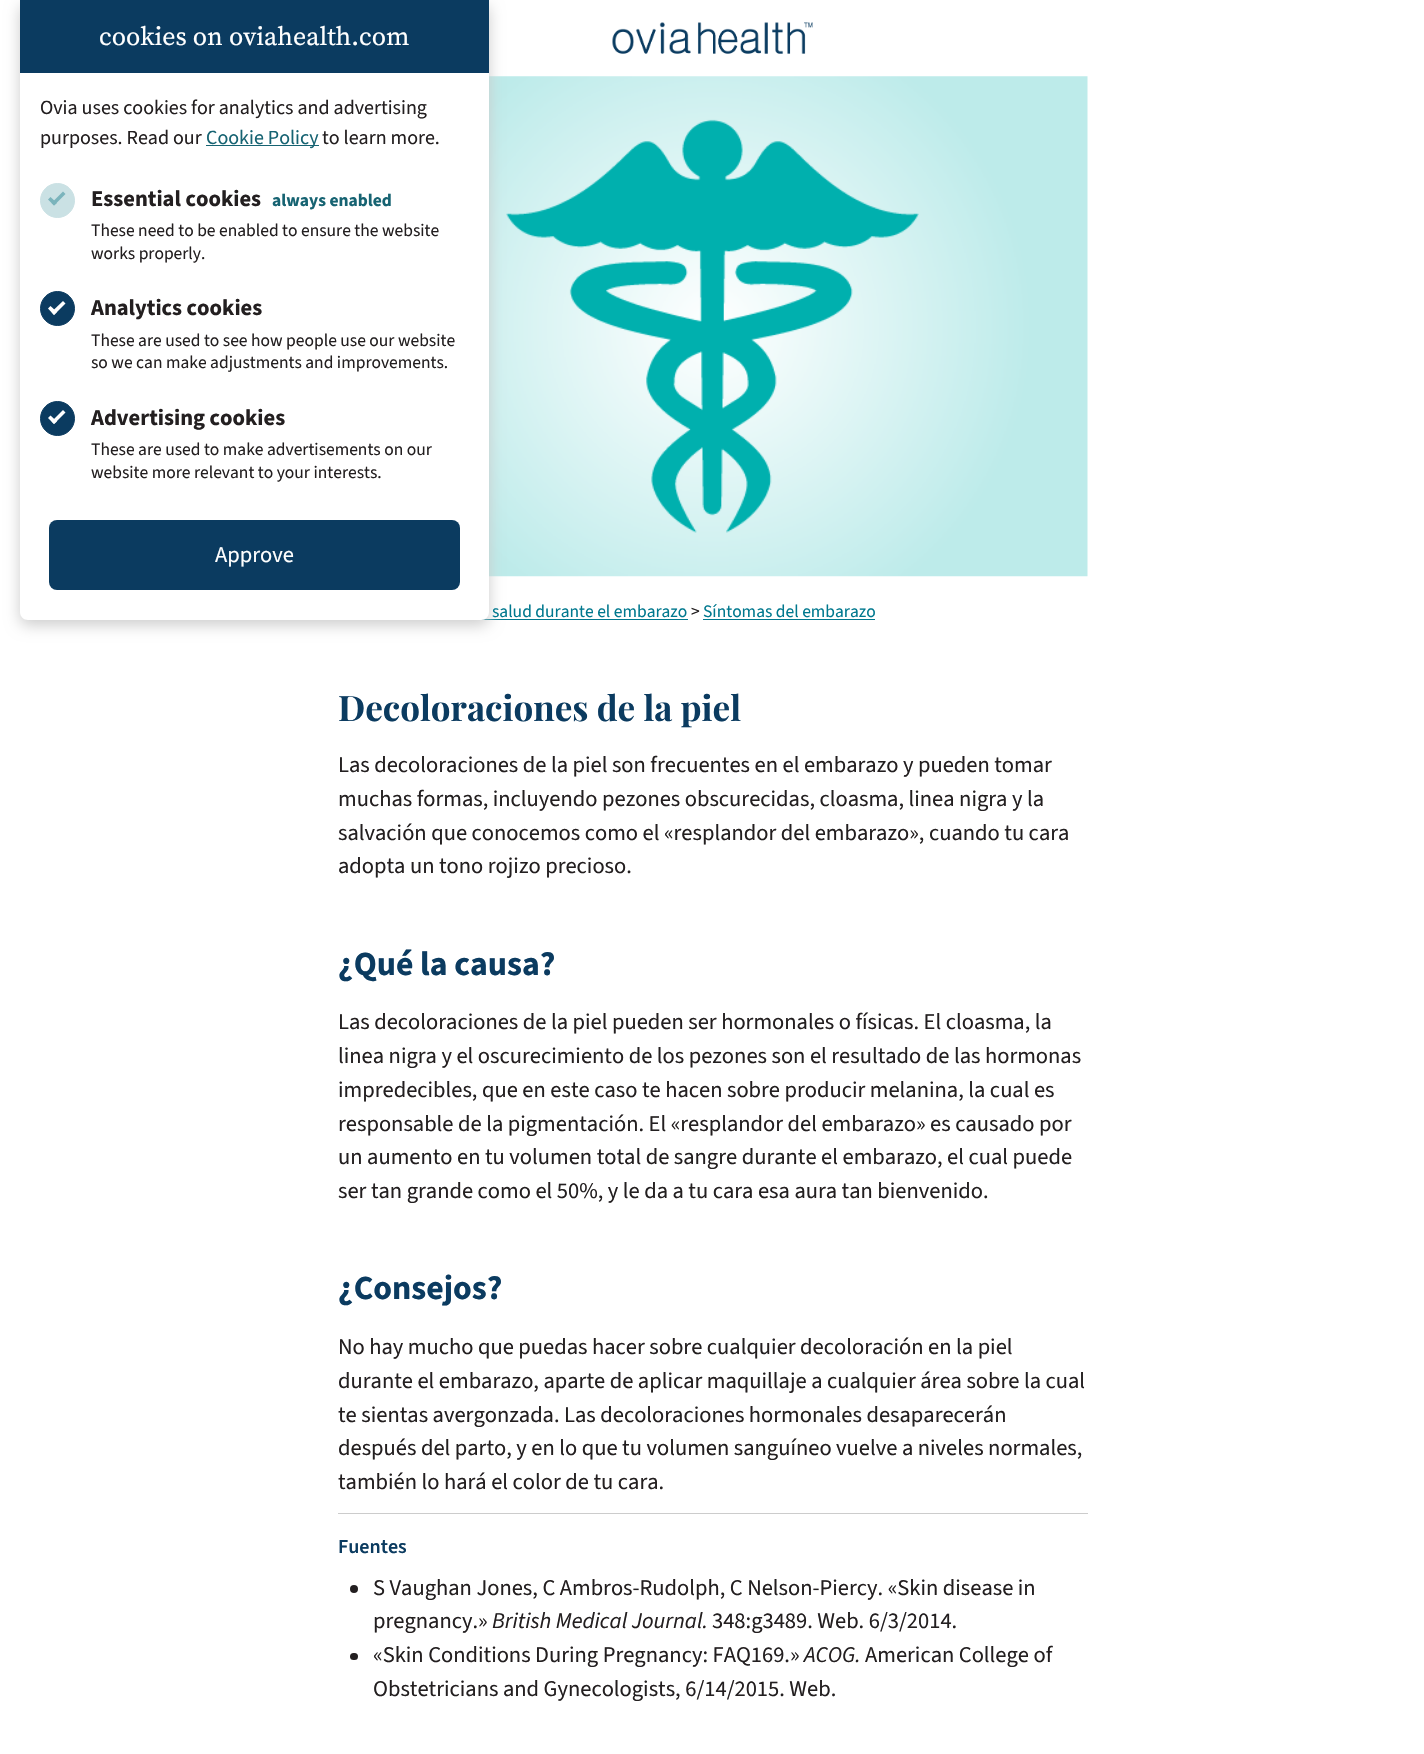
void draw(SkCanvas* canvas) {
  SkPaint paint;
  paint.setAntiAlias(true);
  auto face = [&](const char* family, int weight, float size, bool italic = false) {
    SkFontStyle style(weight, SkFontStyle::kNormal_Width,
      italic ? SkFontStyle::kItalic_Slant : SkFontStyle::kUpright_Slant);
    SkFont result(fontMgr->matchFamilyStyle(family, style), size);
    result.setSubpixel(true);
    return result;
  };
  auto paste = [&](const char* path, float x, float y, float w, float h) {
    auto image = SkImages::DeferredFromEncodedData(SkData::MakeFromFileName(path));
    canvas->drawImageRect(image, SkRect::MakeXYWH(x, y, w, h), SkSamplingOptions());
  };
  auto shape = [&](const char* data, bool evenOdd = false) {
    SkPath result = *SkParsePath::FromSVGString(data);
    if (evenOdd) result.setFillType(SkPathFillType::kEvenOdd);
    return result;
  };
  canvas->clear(0xffffffff);
  paste("img/2.png", 489, 76, 599, 501);
  paint.setColor(0xff00788e);
  canvas->drawRect(SkRect::MakeXYWH(481, 619, 207, 1), paint);
  paint.setColor(0xffcccccc);
  paint.setMaskFilter(SkMaskFilter::MakeBlur(kNormal_SkBlurStyle, 7.5f));
  canvas->drawRoundRect(SkRect::MakeXYWH(20, 5, 469, 620), 8, 8, paint);
  paint.setMaskFilter(nullptr);
  paint.setColor(0xffffffff);
  canvas->drawPath(shape("M20 0H489V612C489 616.5 485.5 620 481 620H28C23.5 620 20 616.5 20 612Z"), paint);
  paint.setColor(0xff0b3b60);
  canvas->drawRect(SkRect::MakeXYWH(20, 0, 469, 73), paint);
  paint.setColor(0xff166372);
  canvas->drawRect(SkRect::MakeXYWH(206, 145, 113, 1), paint);
  paint.setColor(0xffcae1e4);
  canvas->drawCircle(57.5f, 200.5f, 17, paint);
  paint.setStroke(true);
  paint.setStrokeWidth(1);
  canvas->drawCircle(57.5f, 200.5f, 17, paint);
  paint.setStroke(false);
  paint.setColor(0xff7ab4bc);
  canvas->drawPath(shape("M51.5 203L63 191.5L65.5 194L54 205.5Z"), paint);
  canvas->drawPath(shape("M48 199.5L50.5 197L57 203L54 205.5Z"), paint);
  paint.setColor(0xff0b3b60);
  canvas->drawCircle(57.5f, 308.5f, 17, paint);
  paint.setStroke(true);
  canvas->drawCircle(57.5f, 308.5f, 17, paint);
  paint.setStroke(false);
  paint.setColor(0xffffffff);
  canvas->drawPath(shape("M51.5 312L63 301L65.5 303.5L54 315Z"), paint);
  canvas->drawPath(shape("M48 308.5L50.5 306L57 312L54 315Z"), paint);
  paint.setColor(0xff0b3b60);
  canvas->drawCircle(57.5f, 418.5f, 17, paint);
  paint.setStroke(true);
  canvas->drawCircle(57.5f, 418.5f, 17, paint);
  paint.setStroke(false);
  paint.setColor(0xffffffff);
  canvas->drawPath(shape("M51.5 421.5L63 410L65.5 412.5L54 424Z"), paint);
  canvas->drawPath(shape("M48 418L50.5 415.5L57 421.5L54 424Z"), paint);
  paint.setColor(0xff0b3b60);
  canvas->drawRoundRect(SkRect::MakeXYWH(49, 520, 411, 70), 8, 8, paint);
  paste("img/1.png", 612, 22, 201, 32);
  paint.setColor(0xff00788e);
  canvas->drawRect(SkRect::MakeXYWH(703, 619, 172, 1), paint);
  paint.setColor(0xffcccccc);
  canvas->drawRect(SkRect::MakeXYWH(338, 1513, 750, 1), paint);
  paint.setColor(0xff231f20);
  canvas->drawCircle(354, 1589, 4, paint);
  canvas->drawRoundRect(SkRect::MakeXYWH(350, 1653, 8, 7), 3.5f, 3.5f, paint);
  auto f0 = face("Source Serif Pro", 400, 26);
  paint.setColor(0xffffffff);
  canvas->drawString("cookies on oviahealth.com", 99, 45, f0, paint);
  auto f1 = face("Source Sans 3", 400, 20);
  paint.setColor(0xff231f20);
  canvas->drawString("Ovia uses cookies for analytics and advertising", 40, 114, f1, paint);
  canvas->drawString("purposes. Read our", 40, 144, f1, paint);
  paint.setColor(0xff166372);
  canvas->drawString("Cookie Policy", 206, 144, f1, paint);
  paint.setColor(0xff231f20);
  canvas->drawString("to learn more.", 322, 144, f1, paint);
  auto f2 = face("Source Sans 3", 700, 22.5f);
  canvas->drawString("Essential cookies", 91, 206, f2, paint);
  auto f3 = face("Source Sans 3", 700, 17.5f);
  paint.setColor(0xff166372);
  canvas->drawString("always enabled", 272, 206, f3, paint);
  auto f4 = face("Source Sans 3", 400, 17.5f);
  paint.setColor(0xff231f20);
  canvas->drawString("These need to be enabled to ensure the website", 91, 236, f4, paint);
  canvas->drawString("works properly.", 91, 259, f4, paint);
  canvas->drawString("Analytics cookies", 91, 315, f2, paint);
  canvas->drawString("These are used to see how people use our website", 91, 346, f4, paint);
  canvas->drawString("so we can make adjustments and improvements.", 91, 368, f4, paint);
  canvas->drawString("Advertising cookies", 91, 425, f2, paint);
  canvas->drawString("These are used to make advertisements on our", 91, 455, f4, paint);
  canvas->drawString("website more relevant to your interests.", 91, 478, f4, paint);
  auto f5 = face("Source Sans 3", 400, 22.5f);
  paint.setColor(0xffffffff);
  canvas->drawString("Approve", 215, 562, f5, paint);
  paint.setColor(0xff00788e);
  canvas->drawString("salud durante el embarazo", 492, 617, f4, paint);
  paint.setColor(0xff231f20);
  canvas->drawString(">", 691, 617, f4, paint);
  paint.setColor(0xff00788e);
  canvas->drawString("Síntomas del embarazo", 703, 617, f4, paint);
  auto f6 = face("Playfair Display", 700, 35);
  paint.setColor(0xff0b3b60);
  canvas->drawString("Decoloraciones de la piel", 338, 721, f6, paint);
  paint.setColor(0xff231f20);
  {
    const struct { const char* s; float x, y; } items[] = {
      {"Las decoloraciones de la piel son frecuentes en el embarazo y pueden tomar", 338, 772},
      {"muchas formas, incluyendo pezones obscurecidas, cloasma, linea nigra y la", 338, 806},
      {"salvación que conocemos como el «resplandor del embarazo», cuando tu cara", 338, 840},
      {"adopta un tono rojizo precioso.", 338, 873},
    };
    for (auto [s, x, y] : items) {
      canvas->drawString(s, x, y, f5, paint);
    }
  }
  auto f7 = face("Source Sans 3", 700, 33.75f);
  paint.setColor(0xff0b3b60);
  canvas->drawString("¿Qué la causa?", 338, 975, f7, paint);
  paint.setColor(0xff231f20);
  {
    const struct { const char* s; float x, y; } items[] = {
      {"Las decoloraciones de la piel pueden ser hormonales o físicas. El cloasma, la", 338, 1029},
      {"linea nigra y el oscurecimiento de los pezones son el resultado de las hormonas", 338, 1063},
      {"impredecibles, que en este caso te hacen sobre producir melanina, la cual es", 338, 1097},
      {"responsable de la pigmentación. El «resplandor del embarazo» es causado por", 338, 1131},
      {"un aumento en tu volumen total de sangre durante el embarazo, el cual puede", 338, 1164},
      {"ser tan grande como el 50%, y le da a tu cara esa aura tan bienvenido.", 338, 1198},
    };
    for (auto [s, x, y] : items) {
      canvas->drawString(s, x, y, f5, paint);
    }
  }
  paint.setColor(0xff0b3b60);
  canvas->drawString("¿Consejos?", 338, 1299, f7, paint);
  paint.setColor(0xff231f20);
  {
    const struct { const char* s; float x, y; } items[] = {
      {"No hay mucho que puedas hacer sobre cualquier decoloración en la piel", 338, 1354},
      {"durante el embarazo, aparte de aplicar maquillaje a cualquier área sobre la cual", 338, 1388},
      {"te sientas avergonzada. Las decoloraciones hormonales desaparecerán", 338, 1422},
      {"después del parto, y en lo que tu volumen sanguíneo vuelve a niveles normales,", 338, 1455},
      {"también lo hará el color de tu cara.", 338, 1489},
    };
    for (auto [s, x, y] : items) {
      canvas->drawString(s, x, y, f5, paint);
    }
  }
  auto f8 = face("Source Sans 3", 600, 20);
  paint.setColor(0xff0b3b60);
  canvas->drawString("Fuentes", 338, 1553, f8, paint);
  paint.setColor(0xff231f20);
  canvas->drawString("S Vaughan Jones, C Ambros-Rudolph, C Nelson-Piercy. «Skin disease in", 373, 1595, f5, paint);
  canvas->drawString("pregnancy.»", 373, 1628, f5, paint);
  auto f9 = face("Source Sans 3", 400, 22.5f, true);
  canvas->drawString("British Medical Journal.", 492, 1628, f9, paint);
  canvas->drawString("348:g3489. Web. 6/3/2014.", 712, 1628, f5, paint);
  canvas->drawString("«Skin Conditions During Pregnancy: FAQ169.»", 373, 1662, f5, paint);
  canvas->drawString("ACOG.", 804, 1662, f9, paint);
  canvas->drawString("American College of", 865, 1662, f5, paint);
  canvas->drawString("Obstetricians and Gynecologists, 6/14/2015. Web.", 373, 1696, f5, paint);
}
